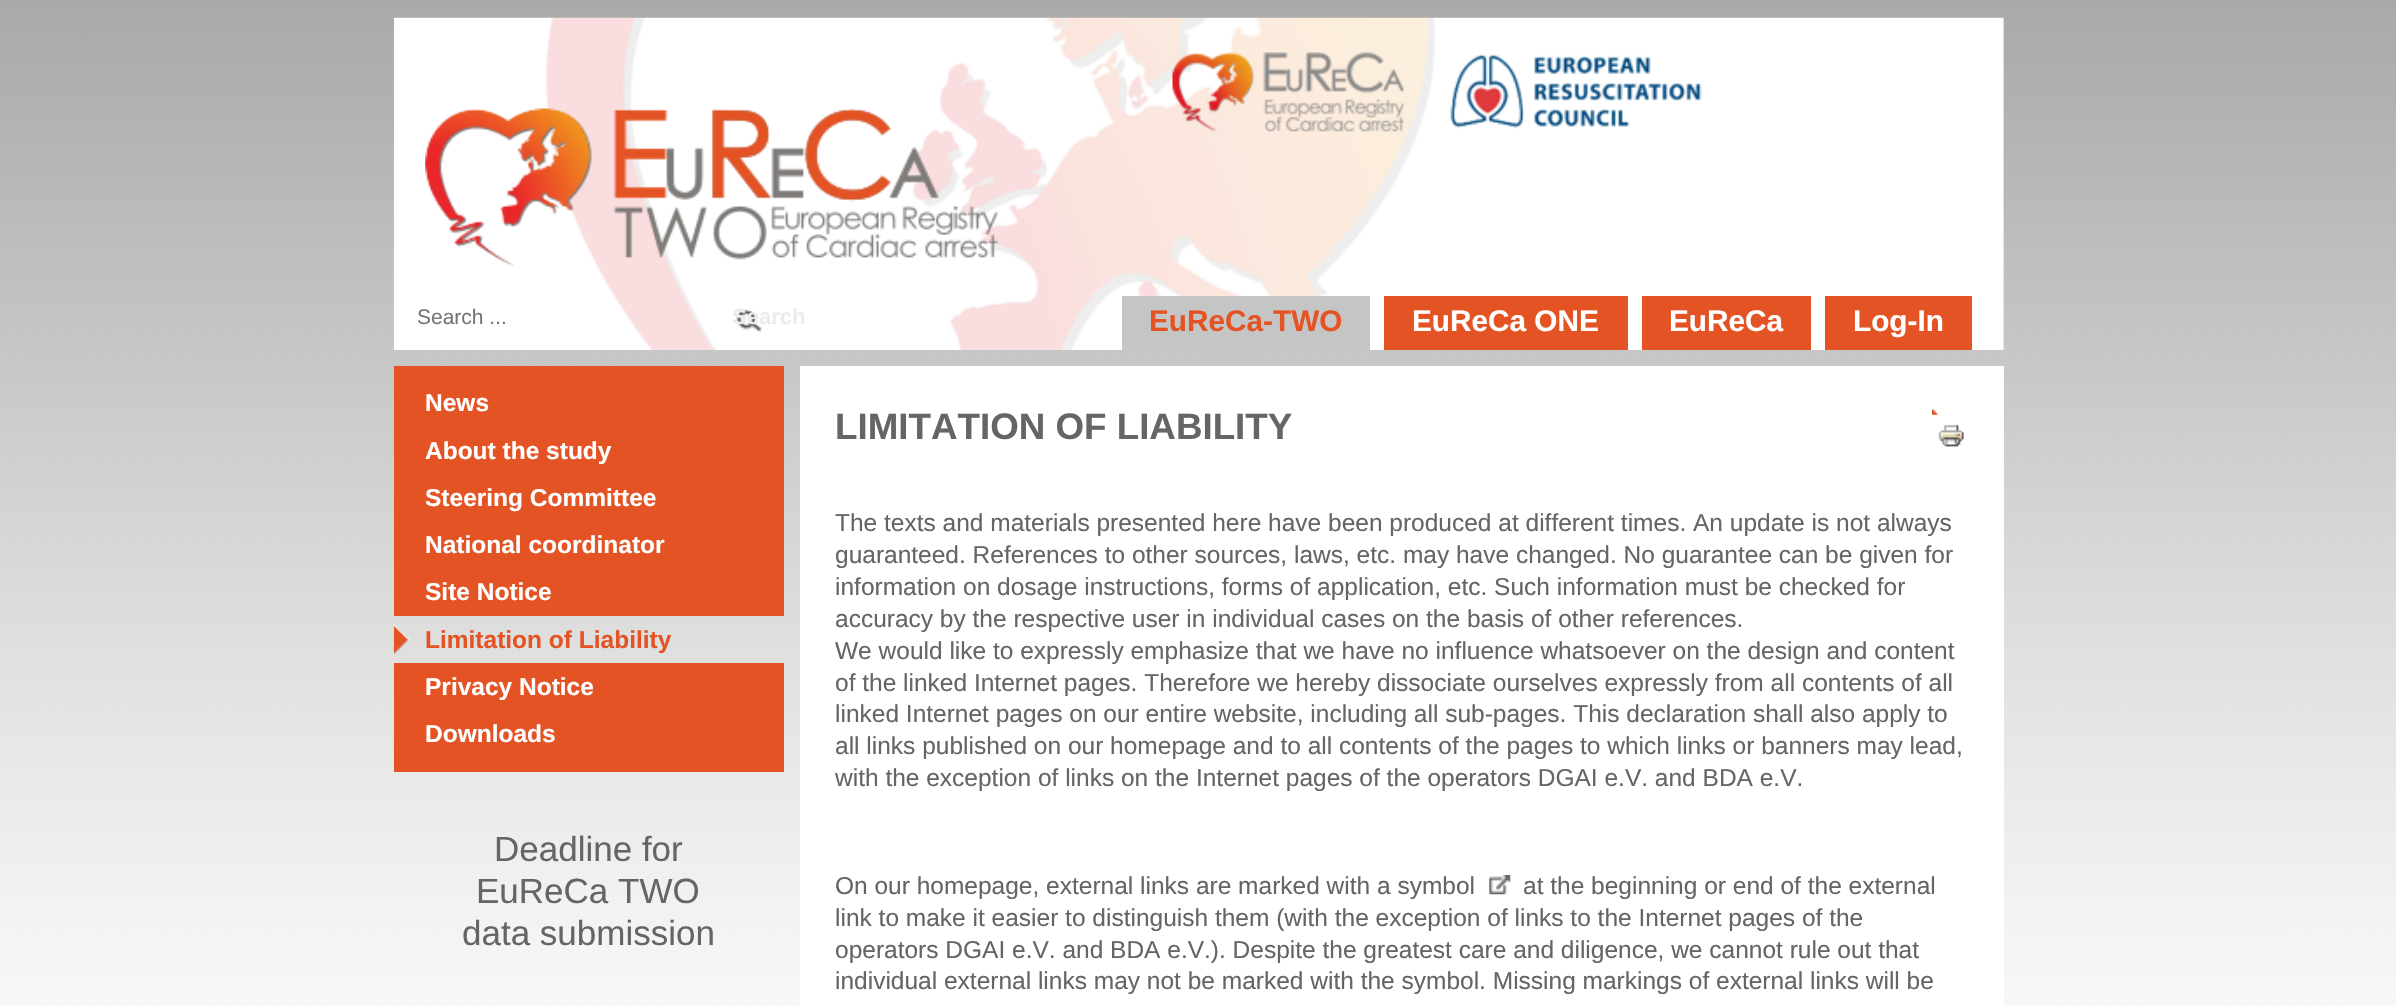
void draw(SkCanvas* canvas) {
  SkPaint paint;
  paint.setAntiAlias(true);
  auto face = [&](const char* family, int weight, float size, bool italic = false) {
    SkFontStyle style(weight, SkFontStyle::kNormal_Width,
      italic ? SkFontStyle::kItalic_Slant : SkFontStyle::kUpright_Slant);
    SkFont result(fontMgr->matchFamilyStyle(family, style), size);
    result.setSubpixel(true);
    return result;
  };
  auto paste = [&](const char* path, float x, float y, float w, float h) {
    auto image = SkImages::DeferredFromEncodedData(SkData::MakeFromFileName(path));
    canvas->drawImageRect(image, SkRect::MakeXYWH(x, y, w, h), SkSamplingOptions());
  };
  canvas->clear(0xffffffff);
  paste("img/1.png", 0, 0, 2396, 1006);
  paste("img/2.png", 393, 17, 1611, 333);
  paste("img/3.png", 1172, 52, 232, 80);
  paste("img/4.png", 1450, 54, 252, 75);
  paste("img/5.png", 425, 108, 573, 158);
  paste("img/6.png", 736, 309, 26, 24);
  {
    const struct { float x, y, w, h; SkColor color; } items[] = {
      {1122, 296, 248, 54, 0xffc5c5c5},
      {1384, 296, 244, 54, 0xffe45323},
      {1642, 296, 169, 54, 0xffe45323},
      {1825, 296, 147, 54, 0xffe45323},
      {394, 366, 390, 250, 0xffe45323},
      {394, 758, 390, 14, 0xffe45323},
    };
    for (auto [x, y, w, h, color] : items) {
      paint.setColor(color);
      canvas->drawRect(SkRect::MakeXYWH(x, y, w, h), paint);
    }
  }
  paste("img/7.png", 393, 624, 17, 31);
  canvas->drawRect(SkRect::MakeXYWH(394, 663, 390, 95), paint);
  paint.setColor(0xffffffff);
  canvas->drawRect(SkRect::MakeXYWH(800, 366, 1204, 640), paint);
  paste("img/8.png", 1932, 408, 6, 7);
  paste("img/9.png", 1938, 424, 26, 23);
  paste("img/10.png", 1489, 875, 22, 20);
  auto f0 = face("Liberation Sans", 400, 21);
  paint.setColor(0xff757575);
  canvas->drawString("Search ...", 417, 324, f0, paint);
  auto f1 = face("Liberation Sans", 700, 22);
  paint.setColor(0xffececec);
  canvas->drawString("Search", 732, 324, f1, paint);
  auto f2 = face("Liberation Sans", 700, 29.75f);
  paint.setColor(0xffe45323);
  canvas->drawString("EuReCa-TWO", 1149, 331, f2, paint);
  paint.setColor(0xffffffff);
  {
    const struct { const char* s; float x, y; } items[] = {
      {"EuReCa ONE", 1412, 331},
      {"EuReCa", 1669, 331},
      {"Log-In", 1853, 331},
    };
    for (auto [s, x, y] : items) {
      canvas->drawString(s, x, y, f2, paint);
    }
  }
  auto f3 = face("Liberation Sans", 700, 24.5f);
  {
    const struct { const char* s; float x, y; } items[] = {
      {"News", 425, 411},
      {"About the study", 425, 459},
      {"Steering Committee", 425, 506},
      {"National coordinator", 425, 553},
      {"Site Notice", 425, 600},
    };
    for (auto [s, x, y] : items) {
      canvas->drawString(s, x, y, f3, paint);
    }
  }
  paint.setColor(0xffe45323);
  canvas->drawString("Limitation of Liability", 425, 648, f3, paint);
  paint.setColor(0xffffffff);
  canvas->drawString("Privacy Notice", 425, 695, f3, paint);
  canvas->drawString("Downloads", 425, 742, f3, paint);
  auto f4 = face("Liberation Sans", 400, 35);
  paint.setColor(0xff656565);
  {
    const struct { const char* s; float x, y; } items[] = {
      {"Deadline for", 494, 861},
      {"EuReCa TWO", 476, 903},
      {"data submission", 462, 945},
    };
    for (auto [s, x, y] : items) {
      canvas->drawString(s, x, y, f4, paint);
    }
  }
  auto f5 = face("Liberation Sans", 700, 36.75f);
  canvas->drawString("LIMITATION OF LIABILITY", 835, 439, f5, paint);
  auto f6 = face("Liberation Sans", 400, 24.5f);
  {
    const struct { const char* s; float x, y; } items[] = {
      {"The texts and materials presented here have been produced at different times. An update is not always", 835, 531},
      {"guaranteed. References to other sources, laws, etc. may have changed. No guarantee can be given for", 835, 563},
      {"information on dosage instructions, forms of application, etc. Such information must be checked for", 835, 595},
      {"accuracy by the respective user in individual cases on the basis of other references.", 835, 627},
      {"We would like to expressly emphasize that we have no influence whatsoever on the design and content", 835, 659},
      {"of the linked Internet pages. Therefore we hereby dissociate ourselves expressly from all contents of all", 835, 691},
      {"linked Internet pages on our entire website, including all sub-pages. This declaration shall also apply to", 835, 722},
      {"all links published on our homepage and to all contents of the pages to which links or banners may lead,", 835, 754},
      {"with the exception of links on the Internet pages of the operators DGAI e.V. and BDA e.V.", 835, 786},
      {"On our homepage, external links are marked with a symbol", 835, 894},
      {"at the beginning or end of the external", 1523, 894},
      {"link to make it easier to distinguish them (with the exception of links to the Internet pages of the", 835, 926},
      {"operators DGAI e.V. and BDA e.V.). Despite the greatest care and diligence, we cannot rule out that", 835, 958},
      {"individual external links may not be marked with the symbol. Missing markings of external links will be", 835, 989},
    };
    for (auto [s, x, y] : items) {
      canvas->drawString(s, x, y, f6, paint);
    }
  }
}
